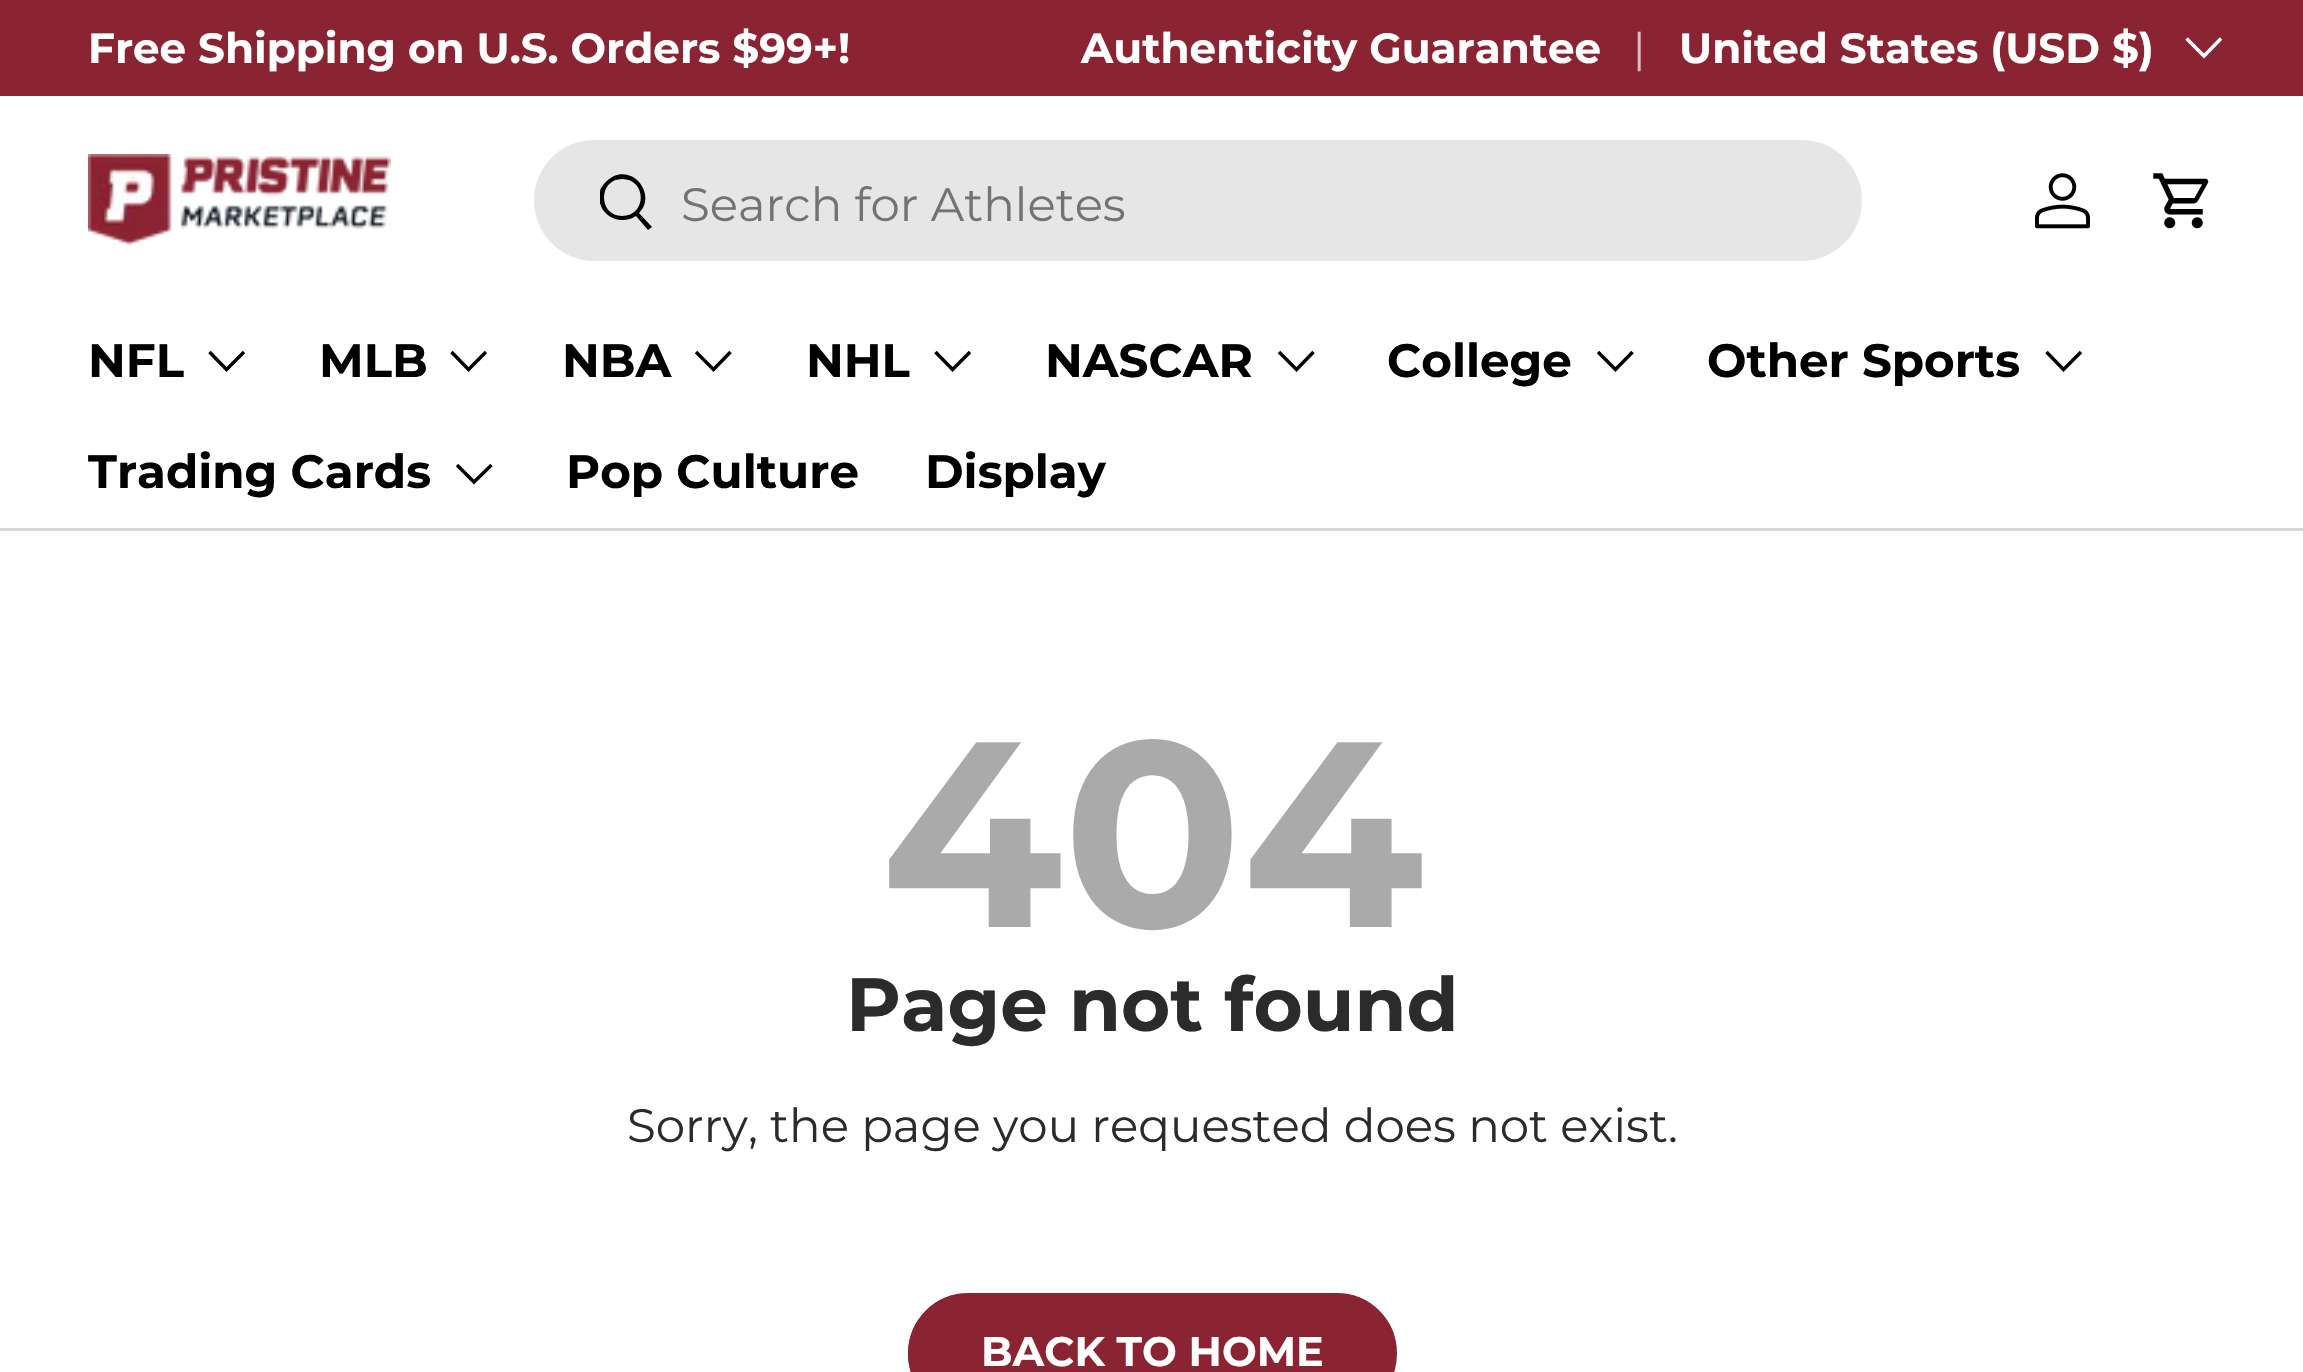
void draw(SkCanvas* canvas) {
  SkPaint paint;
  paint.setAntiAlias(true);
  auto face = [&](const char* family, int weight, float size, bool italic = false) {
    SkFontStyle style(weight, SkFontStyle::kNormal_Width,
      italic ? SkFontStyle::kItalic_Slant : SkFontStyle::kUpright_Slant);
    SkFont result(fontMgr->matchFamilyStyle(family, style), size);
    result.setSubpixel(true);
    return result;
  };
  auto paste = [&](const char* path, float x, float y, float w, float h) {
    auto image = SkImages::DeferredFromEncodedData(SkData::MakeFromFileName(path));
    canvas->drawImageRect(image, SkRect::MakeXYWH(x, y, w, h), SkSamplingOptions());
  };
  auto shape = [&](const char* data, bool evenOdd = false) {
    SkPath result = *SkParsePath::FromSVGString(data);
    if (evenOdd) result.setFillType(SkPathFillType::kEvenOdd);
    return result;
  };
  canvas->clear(0xffffffff);
  paint.setColor(0xff8a2432);
  canvas->drawRect(SkRect::MakeXYWH(0, 0, 2303, 96), paint);
  paint.setStroke(true);
  paint.setStrokeWidth(3.4f);
  paint.setColor(0xffffffff);
  canvas->drawPath(shape("M2221 38.5L2204 56L2186.5 38.5"), paint);
  paint.setStroke(false);
  paint.setColor(0xffd9d9d9);
  canvas->drawRect(SkRect::MakeXYWH(0, 528, 2303, 3), paint);
  paste("img/1.png", 88, 154, 303, 92);
  paint.setColor(0xffe6e6e6);
  canvas->drawRoundRect(SkRect::MakeXYWH(534, 140, 1328, 121), 60.5f, 60.5f, paint);
  canvas->save();
  canvas->clipRect(SkRect::MakeXYWH(600, 173, 57, 64));
  paint.setColor(0xff000000);
  canvas->drawPath(shape("M639 213L652 227L648 230L636 216C626 223 611 221 603 210C599 204 598 196 601 188C604 183 608 179 614 176C636 167 656 196 639 213ZM622 216C647 216 647 179 622 179C598 179 598 216 622 216Z"), paint);
  canvas->restore();
  paste("img/2.png", 2035, 173, 55, 56);
  paste("img/3.png", 2153, 173, 56, 56);
  paint.setStroke(true);
  canvas->drawPath(shape("M244 352L226.5 369.5L209.5 352"), paint);
  canvas->drawPath(shape("M486 352L468.5 369.5L451.5 352"), paint);
  canvas->drawPath(shape("M730.5 352L713.5 369.5L696 352"), paint);
  canvas->drawPath(shape("M970 352L952.5 369.5L935.5 352"), paint);
  canvas->drawPath(shape("M1313.5 352L1296.5 369.5L1279 352"), paint);
  canvas->drawPath(shape("M1632.5 352L1615.5 369.5L1598 352"), paint);
  canvas->drawPath(shape("M2081 352L2063.5 369.5L2046.5 352"), paint);
  canvas->drawPath(shape("M491.5 465L474 482L457 465"), paint);
  canvas->save();
  canvas->clipPath(shape("M968.5 1293H1336.5C1370 1293 1397 1320 1397 1353.5C1397 1387 1370 1414 1336.5 1414H968.5C935 1414 908 1387 908 1353.5C908 1320 935 1293 968.5 1293Z"), true);
  paint.setStroke(false);
  {
    const SkColor colors[] = {0xffa74a57, 0xff8a2432, 0xff8a2432};
    const float stops[] = {0.6f, 0.6f, 1};
    const SkPoint ends[] = {{-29, 1179}, {1365, 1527}};
    paint.setShader(SkGradientShader::MakeLinear(ends, colors, stops, 3, SkTileMode::kClamp));
    paint.setAlpha(255);
  }
  canvas->drawRect(SkRect::MakeXYWH(908, 1295, 486, 77), paint);
  canvas->restore();
  paint.setStroke(true);
  paint.setStrokeWidth(3);
  paint.setShader(nullptr);
  paint.setColor(0xff8a2432);
  canvas->drawRoundRect(SkRect::MakeXYWH(909.5f, 1294.5f, 486, 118), 59, 59, paint);
  auto f0 = face("Montserrat", 700, 42.1f);
  paint.setStroke(false);
  paint.setColor(0xffffffff);
  canvas->drawString("Free Shipping on U.S. Orders $99+!", 88, 63, f0, paint);
  canvas->drawString("Authenticity Guarantee", 1081, 63, f0, paint);
  auto f1 = face("Montserrat", 400, 42.1f);
  paint.setColor(0xffdcbdc2);
  canvas->drawString("|", 1633, 63, f1, paint);
  paint.setColor(0xffffffff);
  canvas->drawString("United States (USD $)", 1679, 63, f0, paint);
  auto f2 = face("Montserrat", 400, 46.75f);
  paint.setColor(0xff737373);
  canvas->drawString("Search for Athletes", 681, 221, f2, paint);
  auto f3 = face("Montserrat", 700, 46.75f);
  paint.setColor(0xff000000);
  {
    const struct { const char* s; float x, y; } items[] = {
      {"NFL", 88, 377},
      {"MLB", 319, 377},
      {"NBA", 562, 377},
      {"NHL", 806, 377},
      {"NASCAR", 1045, 377},
      {"College", 1387, 377},
      {"Other Sports", 1707, 377},
      {"Trading Cards", 88, 488},
      {"Pop Culture", 566, 488},
      {"Display", 925, 488},
    };
    for (auto [s, x, y] : items) {
      canvas->drawString(s, x, y, f3, paint);
    }
  }
  auto f4 = face("Montserrat", 700, 264);
  paint.setColor(0xffaaaaaa);
  canvas->drawString("404", 881, 927, f4, paint);
  auto f5 = face("Montserrat", 700, 75.25f);
  paint.setColor(0xff2a2b2a);
  canvas->drawString("Page not found", 846, 1031, f5, paint);
  canvas->drawString("Sorry, the page you requested does not exist.", 627, 1142, f2, paint);
  auto f6 = face("Montserrat", 700, 41.25f);
  paint.setColor(0xffffffff);
  canvas->drawString("BACK TO HOME", 981, 1366, f6, paint);
}
